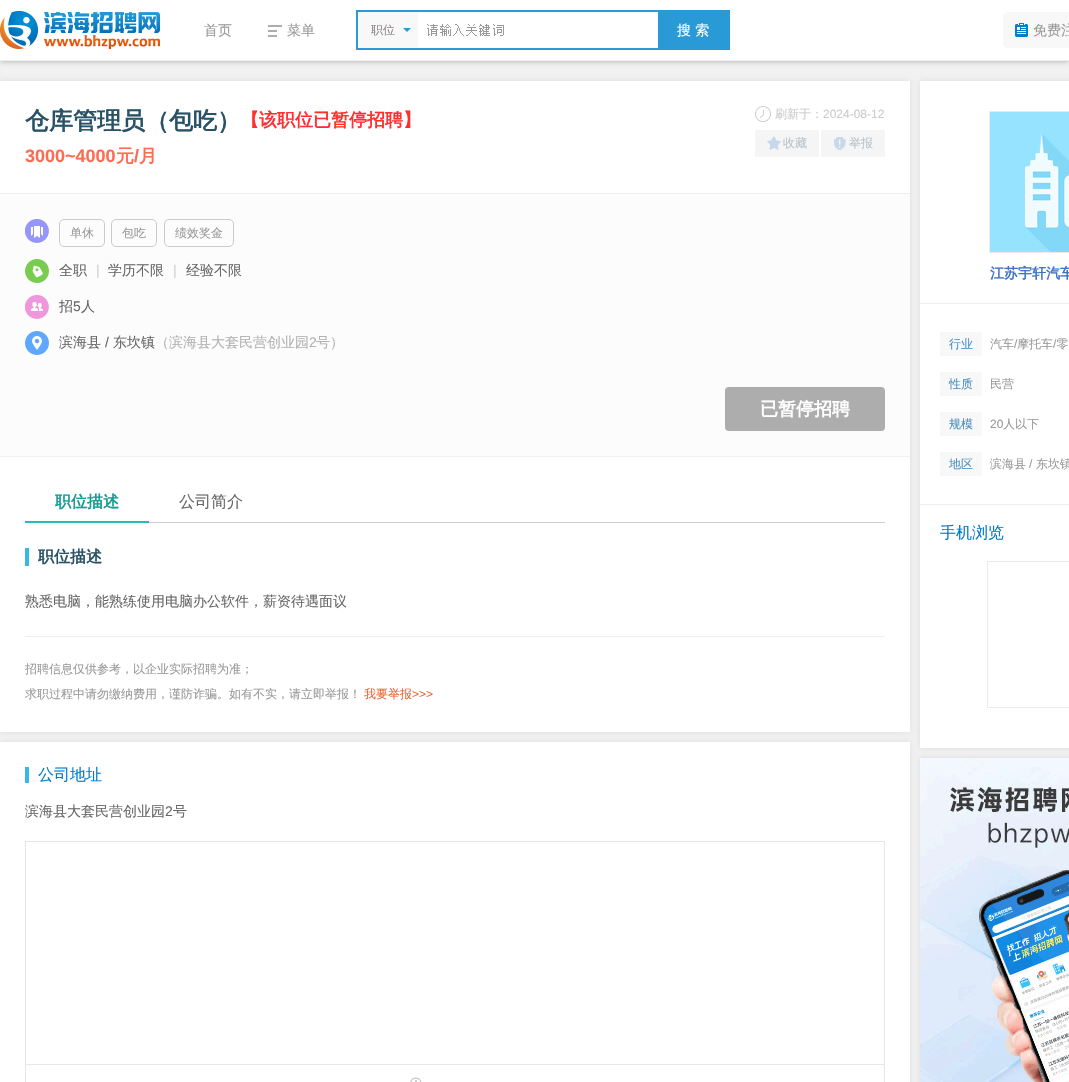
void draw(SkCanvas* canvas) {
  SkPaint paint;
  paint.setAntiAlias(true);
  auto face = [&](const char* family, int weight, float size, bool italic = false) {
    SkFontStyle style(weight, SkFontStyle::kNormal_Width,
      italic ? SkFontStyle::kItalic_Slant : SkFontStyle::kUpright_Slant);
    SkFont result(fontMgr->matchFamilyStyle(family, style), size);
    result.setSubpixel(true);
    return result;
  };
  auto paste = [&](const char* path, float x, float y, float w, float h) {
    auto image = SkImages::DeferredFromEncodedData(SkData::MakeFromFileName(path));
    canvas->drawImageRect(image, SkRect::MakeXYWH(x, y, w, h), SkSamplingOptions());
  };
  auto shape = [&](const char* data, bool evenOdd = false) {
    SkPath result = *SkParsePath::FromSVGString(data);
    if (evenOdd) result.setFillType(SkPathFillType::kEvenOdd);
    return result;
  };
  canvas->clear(0xfff2f2f2);
  paint.setColor(0xffbababa);
  paint.setMaskFilter(SkMaskFilter::MakeBlur(kNormal_SkBlurStyle, 2.5f));
  canvas->drawRect(SkRect::MakeXYWH(0, 1, 1069, 61), paint);
  paint.setMaskFilter(nullptr);
  paint.setColor(0xffffffff);
  canvas->drawRect(SkRect::MakeXYWH(0, 0, 1069, 60), paint);
  paint.setColor(0xffeeeeee);
  canvas->drawRect(SkRect::MakeXYWH(0, 60, 1069, 1), paint);
  paste("img/1.png", 0, 11, 160, 38);
  paste("img/2.png", 268, 25, 14, 12);
  paint.setStroke(true);
  paint.setStrokeWidth(2);
  paint.setColor(0xff299ad6);
  canvas->drawRect(SkRect::MakeXYWH(357, 11, 372, 38), paint);
  paint.setStroke(false);
  paint.setColor(0xfff8f8f8);
  canvas->drawRect(SkRect::MakeXYWH(358, 12, 60, 36), paint);
  paint.setColor(0xff299ad6);
  canvas->drawPath(shape("M403 28H411L407 32Z"), paint);
  paste("img/3.png", 427, 24, 77, 12);
  canvas->drawRect(SkRect::MakeXYWH(658, 12, 70, 36), paint);
  paint.setColor(0xfff8f8f8);
  canvas->drawRoundRect(SkRect::MakeXYWH(1003, 12, 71, 36), 5, 5, paint);
  paste("img/4.png", 1015, 23, 13, 14);
  paint.setColor(0xffdbdbdb);
  paint.setMaskFilter(SkMaskFilter::MakeBlur(kNormal_SkBlurStyle, 3));
  canvas->drawRect(SkRect::MakeXYWH(0, 81, 910, 651), paint);
  paint.setMaskFilter(nullptr);
  paint.setColor(0xffffffff);
  canvas->drawRect(SkRect::MakeXYWH(0, 81, 910, 651), paint);
  paste("img/5.png", 755, 106, 16, 16);
  paint.setColor(0xfff5f5f5);
  canvas->drawRect(SkRect::MakeXYWH(755, 130, 64, 27), paint);
  paste("img/6.png", 767, 136, 14, 14);
  canvas->drawRect(SkRect::MakeXYWH(821, 130, 64, 27), paint);
  paste("img/7.png", 834, 137, 12, 13);
  {
    const struct { float x, y, w, h; SkColor color; } items[] = {
      {0, 194, 910, 262, 0xfffcfcfc},
      {0, 193, 910, 1, 0xffeeeeee},
      {0, 456, 910, 1, 0xfff0f0f0},
    };
    for (auto [x, y, w, h, color] : items) {
      paint.setColor(color);
      canvas->drawRect(SkRect::MakeXYWH(x, y, w, h), paint);
    }
  }
  paste("img/8.png", 25, 219, 24, 24);
  paint.setStroke(true);
  paint.setStrokeWidth(1);
  paint.setColor(0xffcbcbcb);
  canvas->drawRoundRect(SkRect::MakeXYWH(59.5f, 219.5f, 45, 27), 4.5f, 4.5f, paint);
  canvas->drawRoundRect(SkRect::MakeXYWH(111.5f, 219.5f, 45, 27), 4.5f, 4.5f, paint);
  canvas->drawRoundRect(SkRect::MakeXYWH(164.5f, 219.5f, 69, 27), 4.5f, 4.5f, paint);
  paste("img/9.png", 25, 259, 24, 24);
  paste("img/10.png", 25, 295, 24, 24);
  paste("img/11.png", 25, 331, 24, 24);
  paint.setStroke(false);
  paint.setColor(0xffadadad);
  canvas->drawRoundRect(SkRect::MakeXYWH(725, 387, 160, 44), 4, 4, paint);
  {
    const struct { float x, y, w, h; SkColor color; } items[] = {
      {149, 522, 736, 1, 0xffcccccc},
      {25, 521, 124, 2, 0xff2abbb4},
      {25, 548, 4, 18, 0xff38b7ea},
      {25, 636, 860, 1, 0xffeeeeee},
    };
    for (auto [x, y, w, h, color] : items) {
      paint.setColor(color);
      canvas->drawRect(SkRect::MakeXYWH(x, y, w, h), paint);
    }
  }
  paint.setColor(0xffdbdbdb);
  paint.setMaskFilter(SkMaskFilter::MakeBlur(kNormal_SkBlurStyle, 3));
  canvas->drawRect(SkRect::MakeXYWH(0, 742, 910, 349), paint);
  paint.setMaskFilter(nullptr);
  paint.setColor(0xffffffff);
  canvas->drawRect(SkRect::MakeXYWH(0, 742, 910, 340), paint);
  paint.setColor(0xff38b7ea);
  canvas->drawRect(SkRect::MakeXYWH(25, 767, 4, 16), paint);
  paint.setStroke(true);
  paint.setColor(0xffe6e6e6);
  canvas->drawRect(SkRect::MakeXYWH(25.5f, 841.5f, 859, 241), paint);
  paint.setStroke(false);
  canvas->drawRect(SkRect::MakeXYWH(26, 1064, 858, 1), paint);
  paste("img/12.png", 410, 1077, 12, 5);
  paint.setColor(0xffdbdbdb);
  paint.setMaskFilter(SkMaskFilter::MakeBlur(kNormal_SkBlurStyle, 3));
  canvas->drawRect(SkRect::MakeXYWH(920, 81, 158, 667), paint);
  paint.setMaskFilter(nullptr);
  paint.setColor(0xffffffff);
  canvas->drawRect(SkRect::MakeXYWH(920, 81, 149, 667), paint);
  paint.setColor(0xffeeeeee);
  canvas->drawRect(SkRect::MakeXYWH(920, 303, 149, 1), paint);
  paint.setStroke(true);
  paint.setColor(0xffebebeb);
  canvas->drawRect(SkRect::MakeXYWH(989.5f, 111.5f, 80, 141), paint);
  paste("img/13.png", 990, 112, 79, 140);
  paint.setStroke(false);
  {
    const struct { float x, y, w, h; SkColor color; } items[] = {
      {940, 332, 42, 24, 0xfff8f8f8},
      {940, 372, 42, 24, 0xfff8f8f8},
      {940, 412, 42, 24, 0xfff8f8f8},
      {940, 452, 42, 24, 0xfff8f8f8},
      {920, 504, 149, 1, 0xffeeeeee},
    };
    for (auto [x, y, w, h, color] : items) {
      paint.setColor(color);
      canvas->drawRect(SkRect::MakeXYWH(x, y, w, h), paint);
    }
  }
  paint.setStroke(true);
  paint.setColor(0xffebebeb);
  canvas->drawRect(SkRect::MakeXYWH(987.5f, 561.5f, 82, 146), paint);
  paint.setStroke(false);
  paint.setColor(0xffdbdbdb);
  paint.setMaskFilter(SkMaskFilter::MakeBlur(kNormal_SkBlurStyle, 3));
  canvas->drawRect(SkRect::MakeXYWH(920, 758, 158, 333), paint);
  paint.setMaskFilter(nullptr);
  paste("img/14.png", 920, 758, 149, 324);
  auto f0 = face("WenQuanYi Zen Hei", 500, 14);
  paint.setColor(0xff999999);
  canvas->drawString("首页", 204, 35, f0, paint);
  canvas->drawString("菜单", 287, 35, f0, paint);
  auto f1 = face("WenQuanYi Zen Hei", 500, 12);
  paint.setColor(0xff8d8585);
  canvas->drawString("职位", 371, 34, f1, paint);
  paint.setColor(0xffffffff);
  canvas->drawString("搜 索", 677, 35, f0, paint);
  paint.setColor(0xff999999);
  canvas->drawString("免费注", 1033, 35, f0, paint);
  auto f2 = face("WenQuanYi Zen Hei", 700, 24);
  paint.setColor(0xff295266);
  canvas->drawString("仓库管理员（包吃）", 25, 129, f2, paint);
  auto f3 = face("WenQuanYi Zen Hei", 700, 18);
  paint.setColor(0xffff3030);
  canvas->drawString("【该职位已暂停招聘】", 241, 126, f3, paint);
  auto f4 = face("Liberation Sans", 700, 18);
  paint.setColor(0xffff6b50);
  canvas->drawString("3000~4000", 25, 162, f4, paint);
  canvas->drawString("元", 116, 162, f3, paint);
  canvas->drawString("/", 134, 162, f4, paint);
  canvas->drawString("月", 139, 162, f3, paint);
  paint.setColor(0xffcccccc);
  canvas->drawString("刷新于：", 775, 118, f1, paint);
  auto f5 = face("Liberation Sans", 400, 12);
  canvas->drawString("2024-08-12", 823, 118, f5, paint);
  paint.setColor(0xffb8c3cc);
  canvas->drawString("收藏", 783, 147, f1, paint);
  canvas->drawString("举报", 849, 147, f1, paint);
  paint.setColor(0xff999999);
  {
    const struct { const char* s; float x, y; } items[] = {
      {"单休", 70, 237},
      {"包吃", 122, 237},
      {"绩效奖金", 175, 237},
    };
    for (auto [s, x, y] : items) {
      canvas->drawString(s, x, y, f1, paint);
    }
  }
  paint.setColor(0xff666666);
  canvas->drawString("全职", 59, 275, f0, paint);
  auto f6 = face("Liberation Sans", 400, 14);
  paint.setColor(0xffd2d2d2);
  canvas->drawString("|", 96, 275, f6, paint);
  paint.setColor(0xff666666);
  canvas->drawString("学历不限", 108, 275, f0, paint);
  paint.setColor(0xffd2d2d2);
  canvas->drawString("|", 173, 275, f6, paint);
  paint.setColor(0xff666666);
  canvas->drawString("经验不限", 186, 275, f0, paint);
  canvas->drawString("招", 59, 311, f0, paint);
  canvas->drawString("5", 73, 311, f6, paint);
  canvas->drawString("人", 81, 311, f0, paint);
  canvas->drawString("滨海县", 59, 347, f0, paint);
  canvas->drawString("/", 105, 347, f6, paint);
  canvas->drawString("东坎镇", 113, 347, f0, paint);
  paint.setColor(0xffb2b2b2);
  canvas->drawString("（滨海县大套民营创业园", 155, 347, f0, paint);
  canvas->drawString("2", 309, 347, f6, paint);
  canvas->drawString("号）", 316, 347, f0, paint);
  paint.setColor(0xffffffff);
  canvas->drawString("已暂停招聘", 760, 415, f3, paint);
  auto f7 = face("WenQuanYi Zen Hei", 700, 16);
  paint.setColor(0xff149c95);
  canvas->drawString("职位描述", 55, 507, f7, paint);
  auto f8 = face("WenQuanYi Zen Hei", 500, 16);
  paint.setColor(0xff666666);
  canvas->drawString("公司简介", 179, 507, f8, paint);
  paint.setColor(0xff295266);
  canvas->drawString("职位描述", 38, 562, f7, paint);
  paint.setColor(0xff666666);
  canvas->drawString("熟悉电脑，能熟练使用电脑办公软件，薪资待遇面议", 25, 606, f0, paint);
  paint.setColor(0xff999999);
  canvas->drawString("招聘信息仅供参考，以企业实际招聘为准；", 25, 673, f1, paint);
  canvas->drawString("求职过程中请勿缴纳费用，谨防诈骗。如有不实，请立即举报！", 25, 698, f1, paint);
  paint.setColor(0xffec6334);
  canvas->drawString("我要举报", 364, 698, f1, paint);
  canvas->drawString(">>>", 412, 698, f5, paint);
  paint.setColor(0xff007ccf);
  canvas->drawString("公司地址", 38, 780, f8, paint);
  paint.setColor(0xff666666);
  canvas->drawString("滨海县大套民营创业园", 25, 816, f0, paint);
  canvas->drawString("2", 165, 816, f6, paint);
  canvas->drawString("号", 173, 816, f0, paint);
  auto f9 = face("WenQuanYi Zen Hei", 700, 14);
  paint.setColor(0xff3f74c2);
  canvas->drawString("江苏宇轩汽车", 990, 278, f9, paint);
  paint.setColor(0xff4b8fbf);
  canvas->drawString("行业", 949, 348, f1, paint);
  paint.setColor(0xff999999);
  canvas->drawString("汽车", 990, 348, f1, paint);
  canvas->drawString("/", 1014, 348, f5, paint);
  canvas->drawString("摩托车 零", 1017, 348, f1, paint);
  canvas->drawString("/", 1053, 348, f5, paint);
  paint.setColor(0xff4b8fbf);
  canvas->drawString("性质", 949, 388, f1, paint);
  paint.setColor(0xff999999);
  canvas->drawString("民营", 990, 388, f1, paint);
  paint.setColor(0xff4b8fbf);
  canvas->drawString("规模", 949, 428, f1, paint);
  paint.setColor(0xff999999);
  canvas->drawString("20", 990, 428, f5, paint);
  canvas->drawString("人以下", 1003, 428, f1, paint);
  paint.setColor(0xff4b8fbf);
  canvas->drawString("地区", 949, 468, f1, paint);
  paint.setColor(0xff999999);
  canvas->drawString("滨海县", 990, 468, f1, paint);
  canvas->drawString("/", 1029, 468, f5, paint);
  canvas->drawString("东坎镇", 1036, 468, f1, paint);
  paint.setColor(0xff007ccf);
  canvas->drawString("手机浏览", 940, 538, f8, paint);
}
